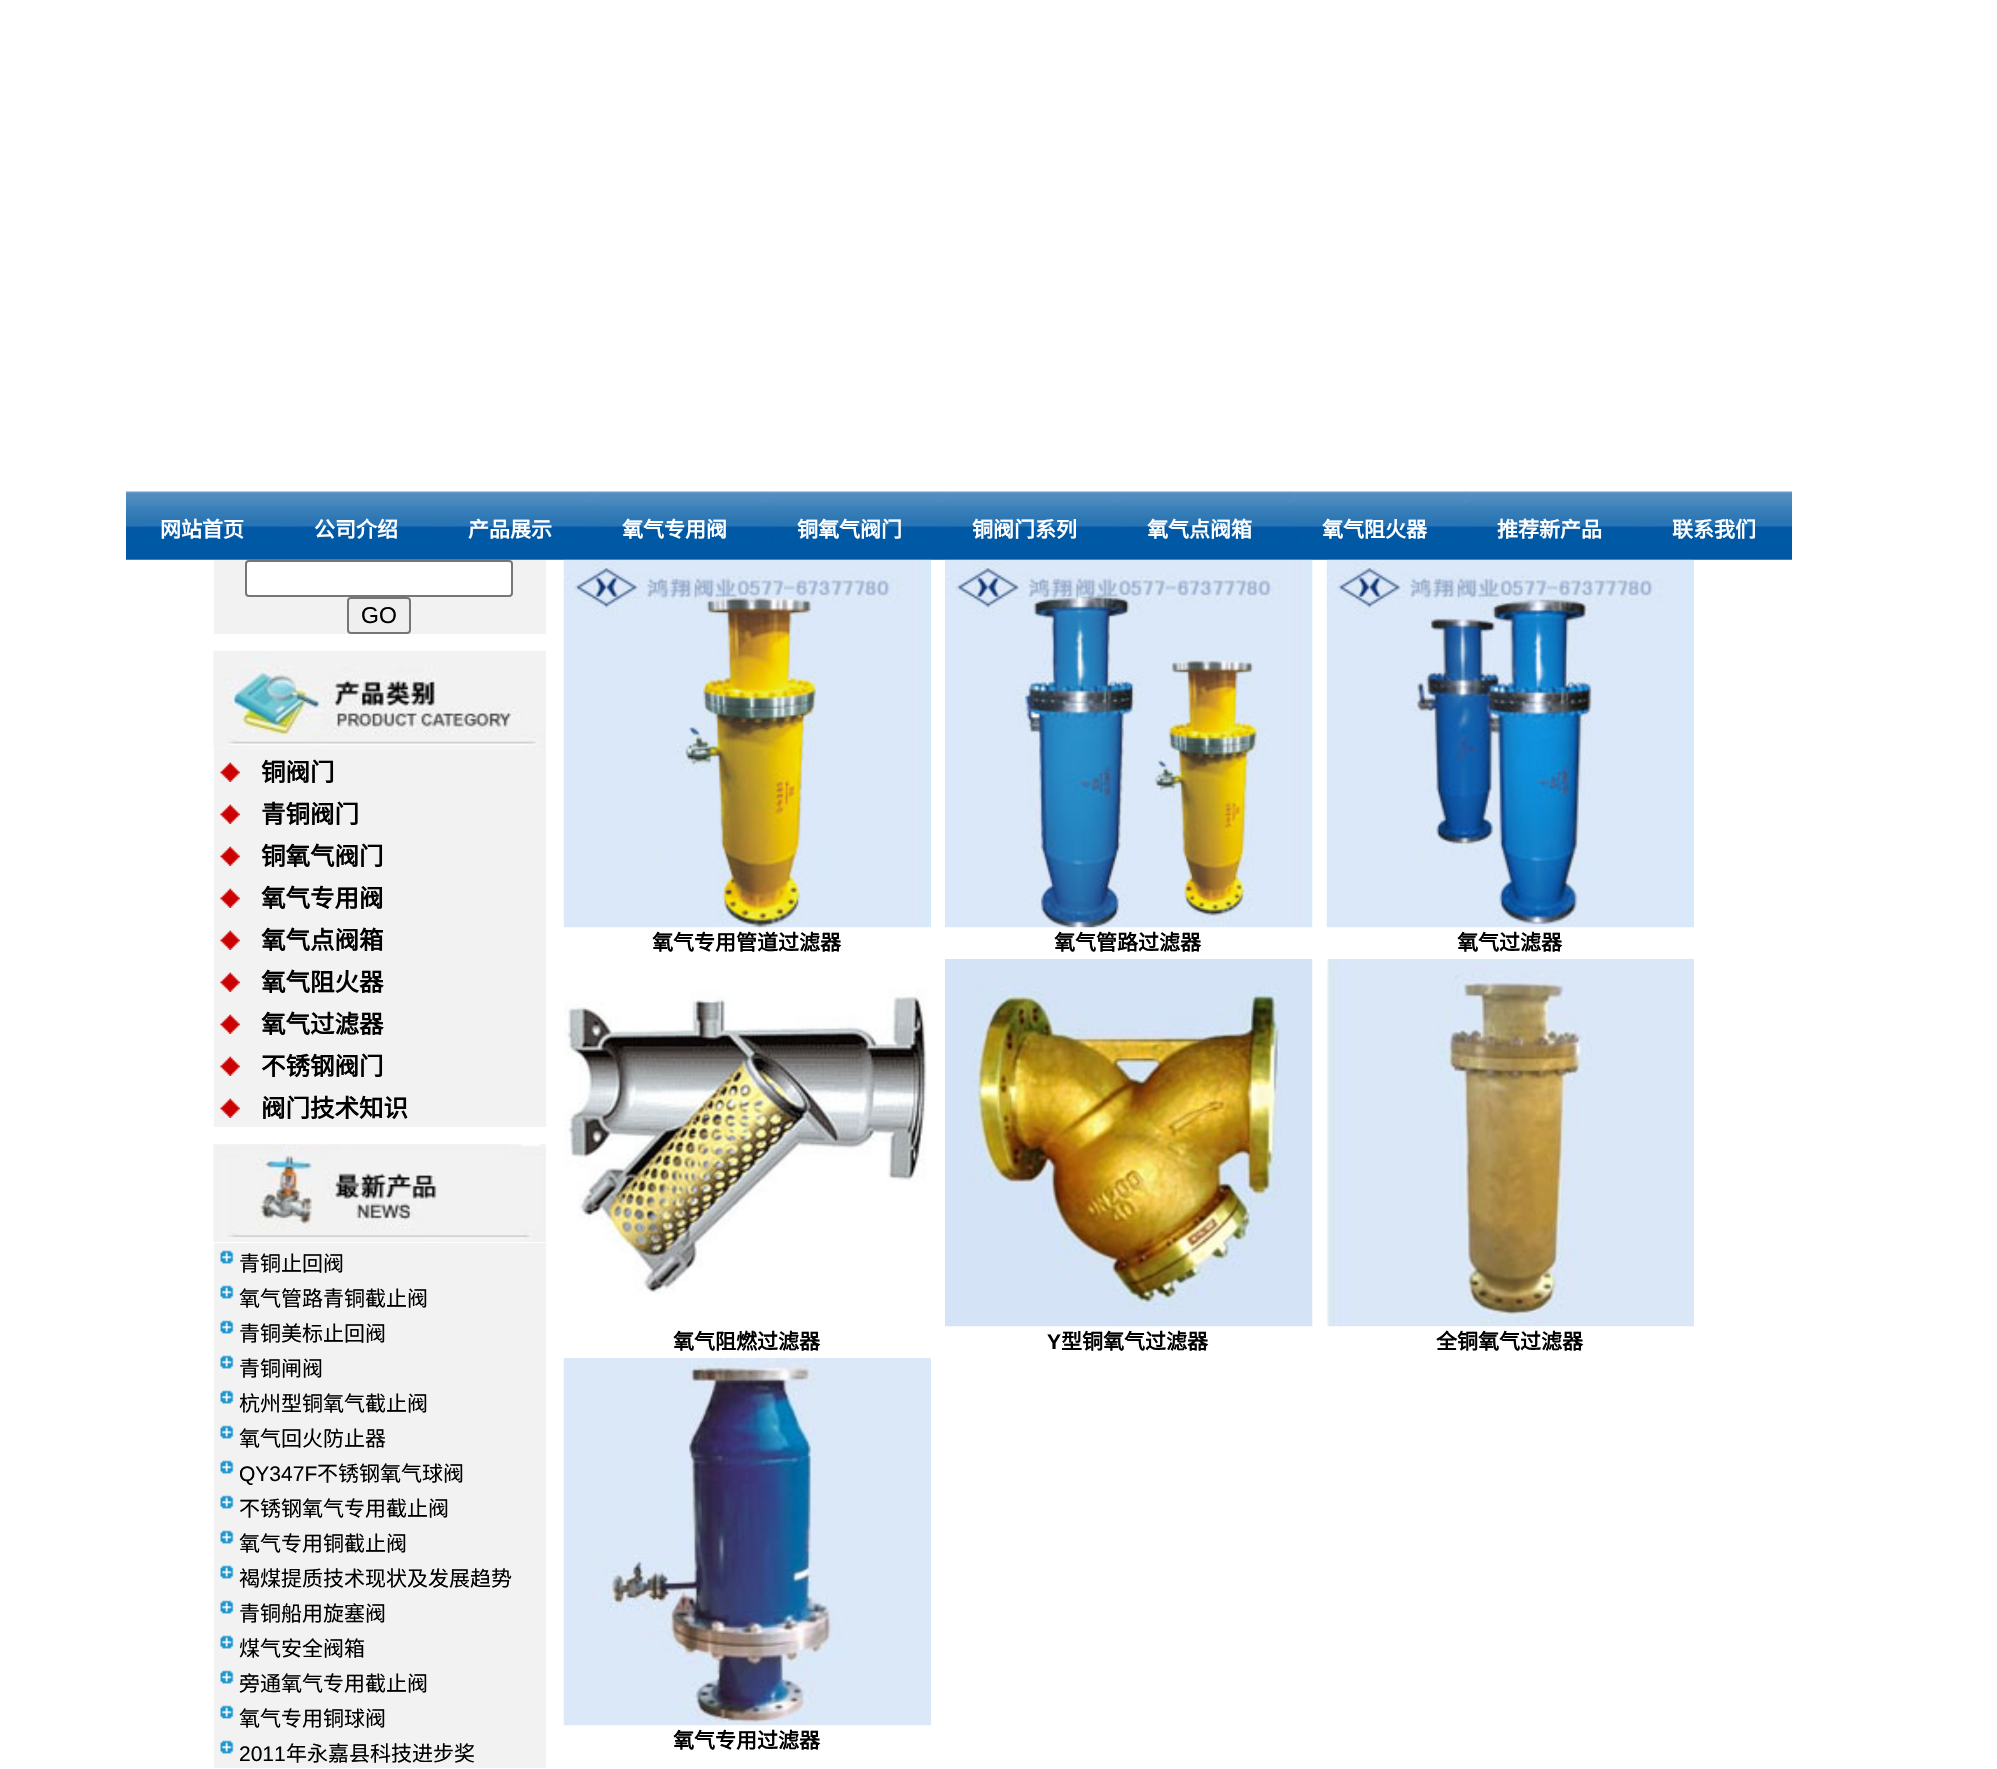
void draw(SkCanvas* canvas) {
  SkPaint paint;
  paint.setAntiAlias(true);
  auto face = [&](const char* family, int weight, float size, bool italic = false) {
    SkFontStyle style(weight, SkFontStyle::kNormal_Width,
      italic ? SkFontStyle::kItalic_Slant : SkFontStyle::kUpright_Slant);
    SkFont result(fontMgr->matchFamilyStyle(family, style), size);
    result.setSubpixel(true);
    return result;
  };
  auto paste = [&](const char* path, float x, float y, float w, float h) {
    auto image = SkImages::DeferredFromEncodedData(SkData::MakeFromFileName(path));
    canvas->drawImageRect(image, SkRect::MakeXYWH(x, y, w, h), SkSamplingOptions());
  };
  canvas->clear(0xffffffff);
  paste("img/1.png", 126, 491, 154, 69);
  paste("img/1.png", 280, 491, 154, 69);
  paste("img/1.png", 434, 491, 154, 69);
  paste("img/2.png", 588, 491, 175, 69);
  paste("img/2.png", 763, 491, 175, 69);
  paste("img/2.png", 938, 491, 175, 69);
  paste("img/2.png", 1113, 491, 175, 69);
  paste("img/2.png", 1288, 491, 175, 69);
  paste("img/2.png", 1463, 491, 175, 69);
  paste("img/1.png", 1638, 491, 154, 69);
  paint.setColor(0xfff2f2f2);
  canvas->drawRect(SkRect::MakeXYWH(214, 560, 332, 74), paint);
  paint.setColor(0xffffffff);
  canvas->drawRoundRect(SkRect::MakeXYWH(246, 561, 266, 35), 3, 3, paint);
  paint.setStroke(true);
  paint.setStrokeWidth(2);
  paint.setColor(0xff767676);
  canvas->drawRoundRect(SkRect::MakeXYWH(246, 561, 266, 35), 3, 3, paint);
  paint.setStroke(false);
  paint.setColor(0xffefefef);
  canvas->drawRoundRect(SkRect::MakeXYWH(348, 598, 62, 35), 3, 3, paint);
  paint.setStroke(true);
  paint.setColor(0xff767676);
  canvas->drawRoundRect(SkRect::MakeXYWH(348, 598, 62, 35), 3, 3, paint);
  paste("img/3.png", 213, 650, 333, 99);
  paint.setStroke(false);
  paint.setColor(0xfff2f2f2);
  canvas->drawRect(SkRect::MakeXYWH(214, 749, 332, 378), paint);
  paste("img/4.png", 220, 762, 20, 20);
  paste("img/4.png", 220, 804, 20, 20);
  paste("img/4.png", 220, 846, 20, 20);
  paste("img/4.png", 220, 888, 20, 20);
  paste("img/4.png", 220, 930, 20, 20);
  paste("img/4.png", 220, 972, 20, 20);
  paste("img/4.png", 220, 1014, 20, 20);
  paste("img/4.png", 220, 1056, 20, 20);
  paste("img/4.png", 220, 1098, 20, 20);
  paste("img/5.png", 213, 1144, 333, 98);
  canvas->drawRect(SkRect::MakeXYWH(214, 1243, 332, 525), paint);
  paste("img/6.png", 220, 1250, 14, 14);
  paste("img/6.png", 220, 1285, 14, 14);
  paste("img/6.png", 220, 1320, 14, 14);
  paste("img/6.png", 220, 1355, 14, 14);
  paste("img/6.png", 220, 1390, 14, 14);
  paste("img/6.png", 220, 1425, 14, 14);
  paste("img/6.png", 220, 1460, 14, 14);
  paste("img/6.png", 220, 1495, 14, 14);
  paste("img/6.png", 220, 1530, 14, 14);
  paste("img/6.png", 220, 1565, 14, 14);
  paste("img/6.png", 220, 1600, 14, 14);
  paste("img/6.png", 220, 1635, 14, 14);
  paste("img/6.png", 220, 1670, 14, 14);
  paste("img/7.png", 220, 1705, 14, 14);
  paste("img/6.png", 220, 1740, 14, 14);
  paste("img/8.png", 563, 559, 368, 369);
  paste("img/9.png", 945, 559, 368, 369);
  paste("img/10.png", 1326, 559, 368, 369);
  paste("img/11.png", 564, 989, 363, 306);
  paste("img/12.png", 945, 959, 368, 368);
  paste("img/13.png", 1326, 959, 368, 368);
  paste("img/14.png", 563, 1358, 368, 368);
  auto f0 = face("Noto Sans CJK SC", 700, 21);
  paint.setColor(0xffffffff);
  {
    const struct { const char* s; float x, y; } items[] = {
      {"网站首页", 160, 537},
      {"公司介绍", 314, 537},
      {"产品展示", 468, 537},
      {"氧气专用阀", 622, 537},
      {"铜氧气阀门", 797, 537},
      {"铜阀门系列", 972, 537},
      {"氧气点阀箱", 1147, 537},
      {"氧气阻火器", 1322, 537},
      {"推荐新产品", 1497, 537},
      {"联系我们", 1672, 537},
    };
    for (auto [s, x, y] : items) {
      canvas->drawString(s, x, y, f0, paint);
    }
  }
  auto f1 = face("Liberation Sans", 400, 23);
  paint.setColor(0xff000000);
  canvas->drawString("GO", 361, 623, f1, paint);
  auto f2 = face("Noto Sans CJK SC", 700, 24.5f);
  {
    const struct { const char* s; float x, y; } items[] = {
      {"铜阀门", 261, 781},
      {"青铜阀门", 261, 823},
      {"铜氧气阀门", 261, 865},
      {"氧气专用阀", 261, 907},
      {"氧气点阀箱", 261, 949},
      {"氧气阻火器", 261, 991},
      {"氧气过滤器", 261, 1033},
      {"不锈钢阀门", 261, 1075},
      {"阀门技术知识", 261, 1117},
    };
    for (auto [s, x, y] : items) {
      canvas->drawString(s, x, y, f2, paint);
    }
  }
  auto f3 = face("Noto Sans CJK SC", 400, 21);
  {
    const struct { const char* s; float x, y; } items[] = {
      {"青铜止回阀", 239, 1271},
      {"氧气管路青铜截止阀", 239, 1306},
      {"青铜美标止回阀", 239, 1341},
      {"青铜闸阀", 239, 1376},
      {"杭州型铜氧气截止阀", 239, 1411},
      {"氧气回火防止器", 239, 1446},
    };
    for (auto [s, x, y] : items) {
      canvas->drawString(s, x, y, f3, paint);
    }
  }
  auto f4 = face("Liberation Sans", 400, 21);
  canvas->drawString("QY347F", 239, 1481, f4, paint);
  {
    const struct { const char* s; float x, y; } items[] = {
      {"不锈钢氧气球阀", 317, 1481},
      {"不锈钢氧气专用截止阀", 239, 1516},
      {"氧气专用铜截止阀", 239, 1551},
      {"褐煤提质技术现状及发展趋势", 239, 1586},
      {"青铜船用旋塞阀", 239, 1621},
      {"煤气安全阀箱", 239, 1656},
      {"旁通氧气专用截止阀", 239, 1691},
      {"氧气专用铜球阀", 239, 1726},
    };
    for (auto [s, x, y] : items) {
      canvas->drawString(s, x, y, f3, paint);
    }
  }
  canvas->drawString("2011", 239, 1761, f4, paint);
  canvas->drawString("年永嘉县科技进步奖", 286, 1761, f3, paint);
  {
    const struct { const char* s; float x, y; } items[] = {
      {"氧气专用管道过滤器", 652, 950},
      {"氧气管路过滤器", 1054, 950},
      {"氧气过滤器", 1457, 950},
      {"氧气阻燃过滤器", 673, 1349},
    };
    for (auto [s, x, y] : items) {
      canvas->drawString(s, x, y, f0, paint);
    }
  }
  auto f5 = face("Liberation Sans", 700, 21);
  canvas->drawString("Y", 1047, 1349, f5, paint);
  {
    const struct { const char* s; float x, y; } items[] = {
      {"型铜氧气过滤器", 1061, 1349},
      {"全铜氧气过滤器", 1436, 1349},
      {"氧气专用过滤器", 673, 1748},
    };
    for (auto [s, x, y] : items) {
      canvas->drawString(s, x, y, f0, paint);
    }
  }
}
